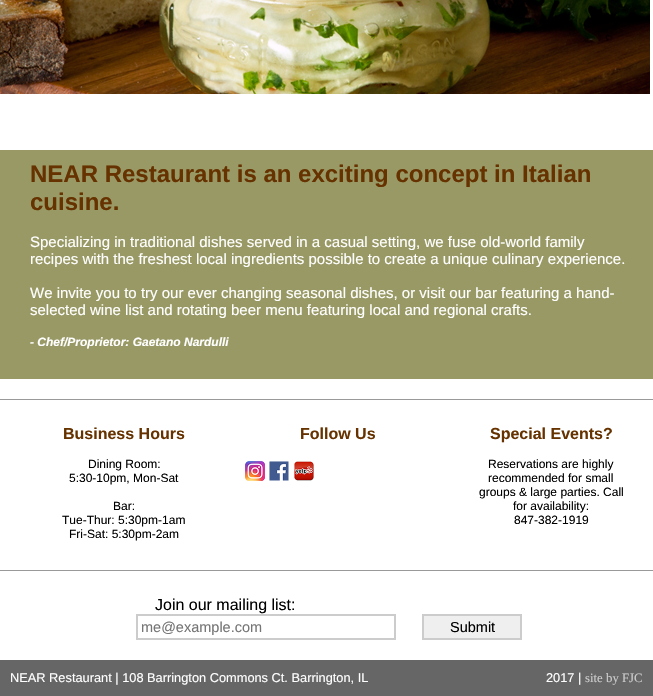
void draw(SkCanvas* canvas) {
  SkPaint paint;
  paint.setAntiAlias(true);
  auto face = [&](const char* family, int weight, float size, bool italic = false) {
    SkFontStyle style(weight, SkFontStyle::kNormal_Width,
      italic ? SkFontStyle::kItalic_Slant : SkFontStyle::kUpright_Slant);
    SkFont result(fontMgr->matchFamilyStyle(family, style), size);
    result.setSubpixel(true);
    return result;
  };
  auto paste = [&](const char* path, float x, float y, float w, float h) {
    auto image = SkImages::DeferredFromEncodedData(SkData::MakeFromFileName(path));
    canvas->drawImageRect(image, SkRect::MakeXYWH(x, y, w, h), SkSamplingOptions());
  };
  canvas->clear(0xffffffff);
  paste("img/1.png", 0, 0, 650, 94);
  {
    const struct { float x, y, w, h; SkColor color; } items[] = {
      {0, 150, 653, 229, 0xff999966},
      {0, 399, 653, 1, 0xff999999},
      {0, 570, 653, 1, 0xff999999},
    };
    for (auto [x, y, w, h, color] : items) {
      paint.setColor(color);
      canvas->drawRect(SkRect::MakeXYWH(x, y, w, h), paint);
    }
  }
  paste("img/2.png", 245, 461, 20, 20);
  paste("img/3.png", 269, 461, 20, 20);
  paste("img/4.png", 294, 461, 20, 20);
  paint.setStroke(true);
  paint.setStrokeWidth(2);
  paint.setColor(0xffcccccc);
  canvas->drawRect(SkRect::MakeXYWH(137, 615, 258, 24), paint);
  paint.setStroke(false);
  paint.setColor(0xffefefef);
  canvas->drawRect(SkRect::MakeXYWH(423, 615, 98, 24), paint);
  paint.setStroke(true);
  paint.setColor(0xffcccccc);
  canvas->drawRect(SkRect::MakeXYWH(423, 615, 98, 24), paint);
  paint.setStroke(false);
  paint.setColor(0xff666666);
  canvas->drawRect(SkRect::MakeXYWH(0, 660, 653, 36), paint);
  auto f0 = face("Liberation Sans", 700, 24);
  paint.setColor(0xff663300);
  canvas->drawString("NEAR Restaurant is an exciting concept in Italian", 30, 182, f0, paint);
  canvas->drawString("cuisine.", 30, 210, f0, paint);
  auto f1 = face("Liberation Sans", 400, 15);
  paint.setColor(0xffffffff);
  {
    const struct { const char* s; float x, y; } items[] = {
      {"Specializing in traditional dishes served in a casual setting, we fuse old-world family", 30, 247},
      {"recipes with the freshest local ingredients possible to create a unique culinary experience.", 30, 264},
      {"We invite you to try our ever changing seasonal dishes, or visit our bar featuring a hand-", 30, 298},
      {"selected wine list and rotating beer menu featuring local and regional crafts.", 30, 315},
    };
    for (auto [s, x, y] : items) {
      canvas->drawString(s, x, y, f1, paint);
    }
  }
  auto f2 = face("Liberation Sans", 700, 12, true);
  canvas->drawString("- Chef/Proprietor: Gaetano Nardulli", 30, 346, f2, paint);
  auto f3 = face("Liberation Sans", 700, 16);
  paint.setColor(0xff663300);
  canvas->drawString("Business Hours", 63, 439, f3, paint);
  auto f4 = face("Liberation Sans", 400, 12);
  paint.setColor(0xff000000);
  {
    const struct { const char* s; float x, y; } items[] = {
      {"Dining Room:", 88, 468},
      {"5:30-10pm, Mon-Sat", 69, 482},
      {"Bar:", 113, 510},
      {"Tue-Thur: 5:30pm-1am", 62, 524},
      {"Fri-Sat: 5:30pm-2am", 69, 538},
    };
    for (auto [s, x, y] : items) {
      canvas->drawString(s, x, y, f4, paint);
    }
  }
  paint.setColor(0xff663300);
  canvas->drawString("Follow Us", 300, 439, f3, paint);
  canvas->drawString("Special Events?", 490, 439, f3, paint);
  paint.setColor(0xff000000);
  {
    const struct { const char* s; float x, y; } items[] = {
      {"Reservations are highly", 488, 468},
      {"recommended for small", 488, 482},
      {"groups & large parties. Call", 479, 496},
      {"for availability:", 513, 510},
      {"847-382-1919", 514, 524},
    };
    for (auto [s, x, y] : items) {
      canvas->drawString(s, x, y, f4, paint);
    }
  }
  auto f5 = face("Liberation Sans", 400, 16);
  canvas->drawString("Join our mailing list:", 155, 610, f5, paint);
  auto f6 = face("Liberation Sans", 400, 14.5f);
  paint.setColor(0xff757575);
  canvas->drawString("me@example.com", 141, 632, f6, paint);
  paint.setColor(0xff000000);
  canvas->drawString("Submit", 450, 632, f6, paint);
  auto f7 = face("Liberation Sans", 400, 12.8f);
  paint.setColor(0xffffffff);
  canvas->drawString("NEAR Restaurant | 108 Barrington Commons Ct. Barrington, IL", 10, 682, f7, paint);
  canvas->drawString("2017 |", 546, 682, f7, paint);
  auto f8 = face("Liberation Serif", 400, 12.8f);
  paint.setColor(0xffcccccc);
  canvas->drawString("site by FJC", 585, 682, f8, paint);
}
